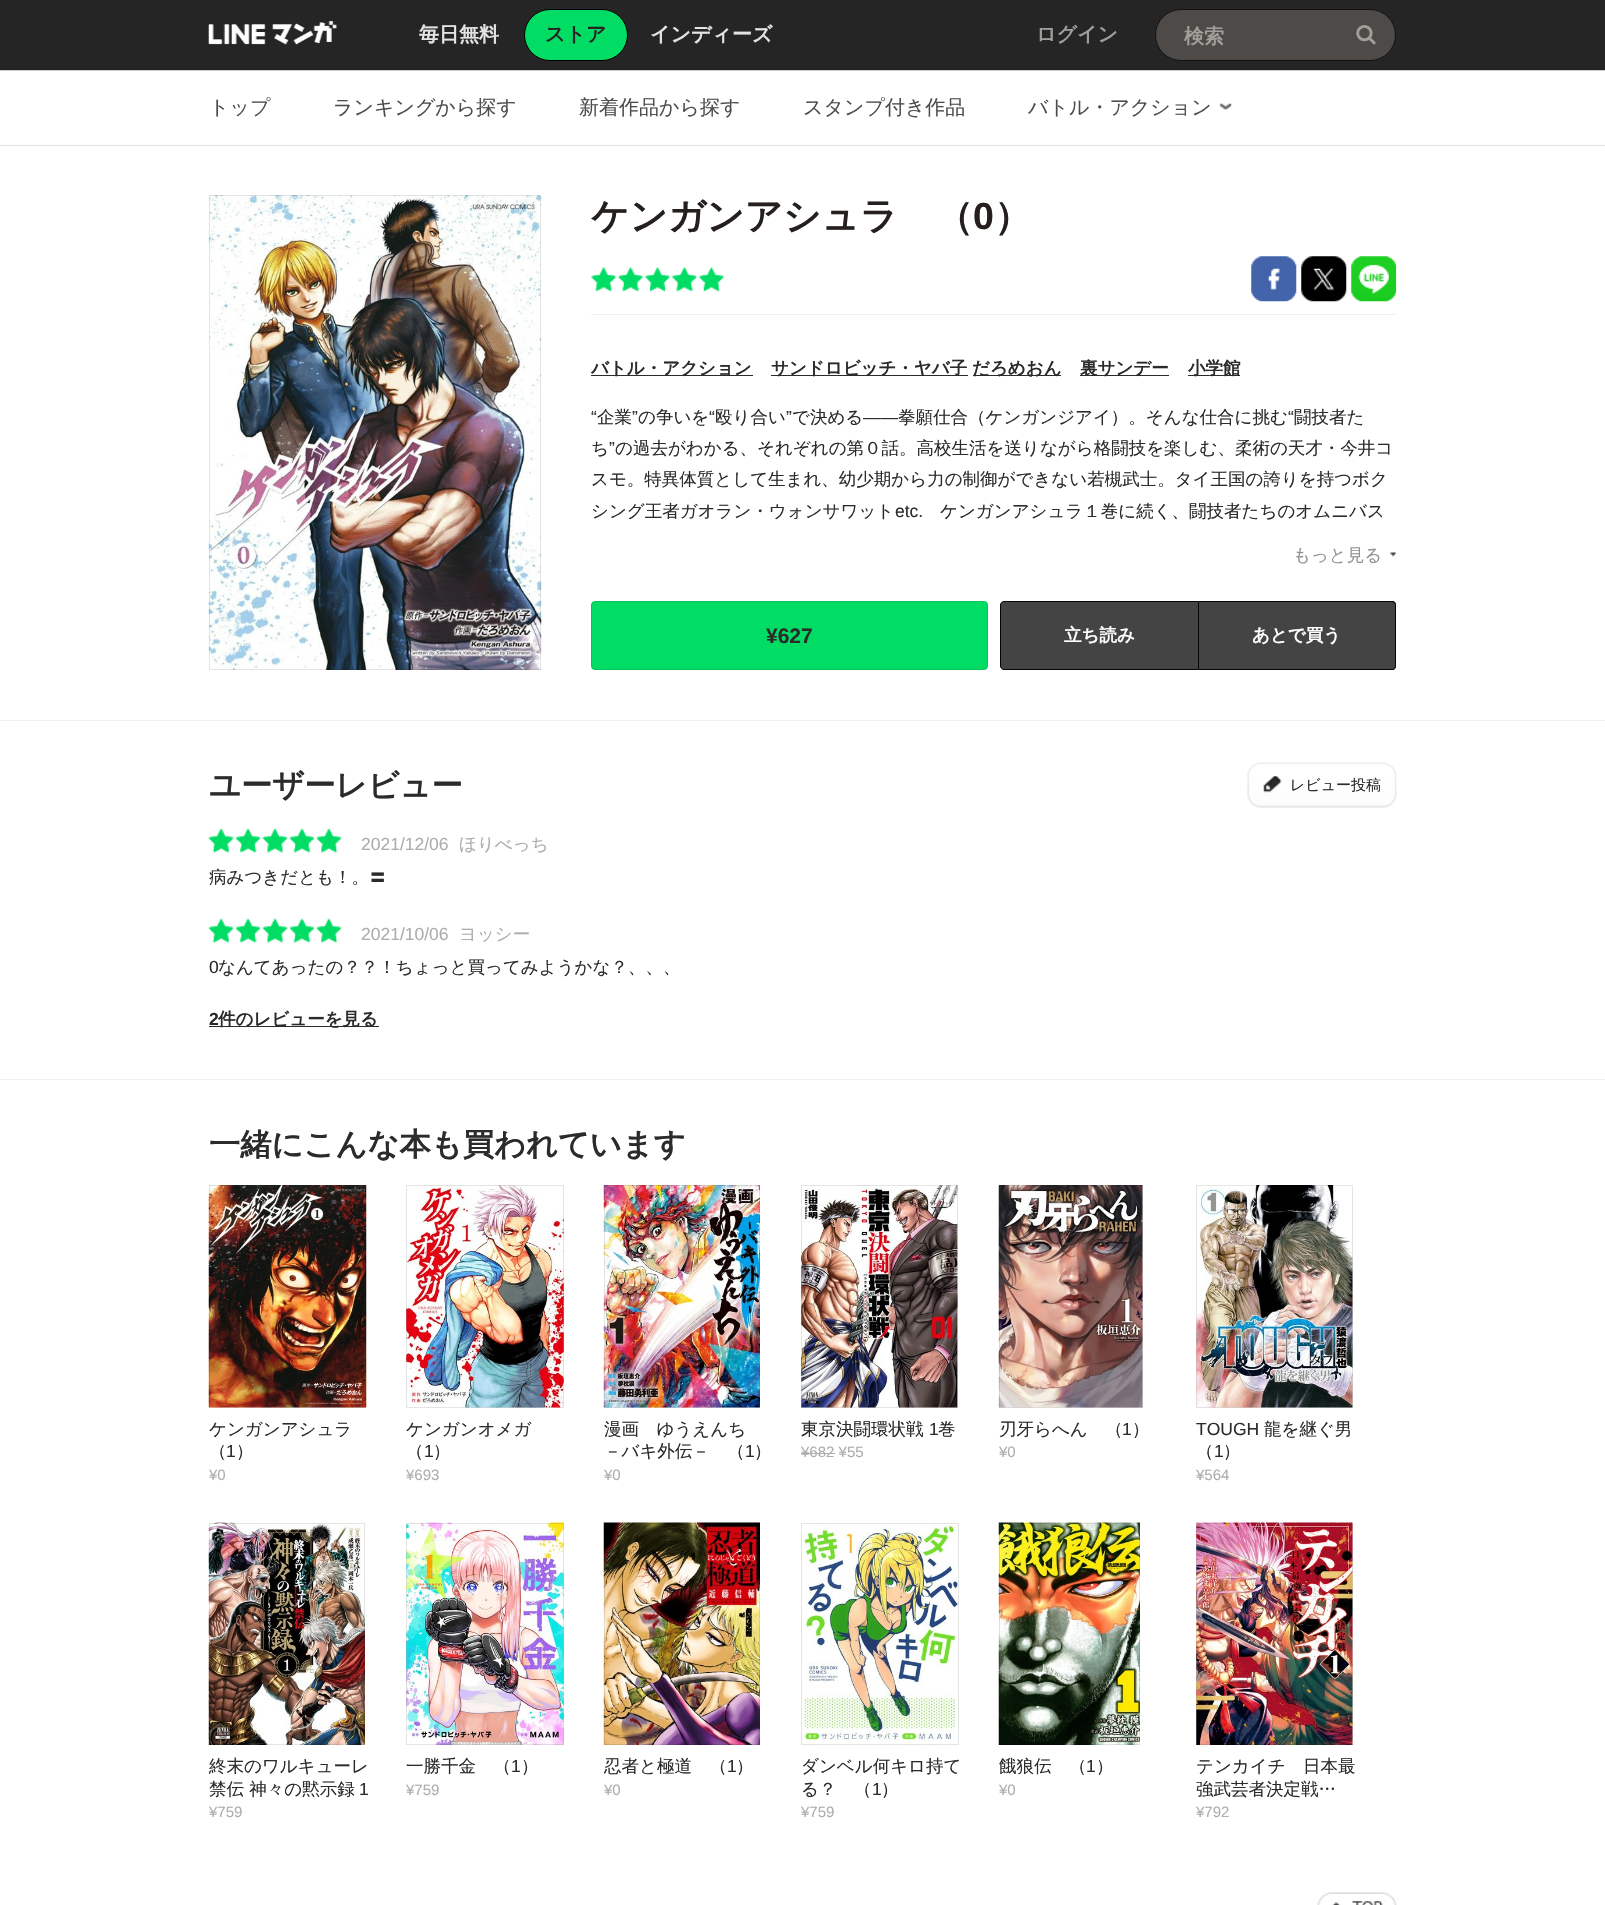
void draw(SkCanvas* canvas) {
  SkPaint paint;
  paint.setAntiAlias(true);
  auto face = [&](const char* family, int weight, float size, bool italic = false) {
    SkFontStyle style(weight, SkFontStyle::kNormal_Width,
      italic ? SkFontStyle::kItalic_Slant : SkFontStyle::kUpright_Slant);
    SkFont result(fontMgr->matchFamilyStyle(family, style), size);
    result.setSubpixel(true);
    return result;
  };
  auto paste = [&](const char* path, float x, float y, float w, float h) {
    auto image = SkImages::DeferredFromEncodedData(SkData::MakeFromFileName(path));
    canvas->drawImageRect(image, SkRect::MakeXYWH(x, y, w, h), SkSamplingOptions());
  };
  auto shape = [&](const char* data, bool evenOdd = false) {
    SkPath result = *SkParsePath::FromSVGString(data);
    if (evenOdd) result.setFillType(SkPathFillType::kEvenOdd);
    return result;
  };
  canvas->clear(0xffffffff);
  paint.setColor(0xff262525);
  canvas->drawRect(SkRect::MakeXYWH(0, 0, 1605, 70), paint);
  paste("img/1.png", 208, 21, 129, 24);
  paint.setColor(0xff00dc64);
  canvas->drawRoundRect(SkRect::MakeXYWH(524.5f, 9.5f, 103, 51), 25.5f, 25.5f, paint);
  paint.setStroke(true);
  paint.setStrokeWidth(1);
  paint.setColor(0xff000000);
  canvas->drawRoundRect(SkRect::MakeXYWH(524.5f, 9.5f, 103, 51), 25.5f, 25.5f, paint);
  paint.setStroke(false);
  paint.setColor(0xff4d4a48);
  canvas->drawRoundRect(SkRect::MakeXYWH(1155.5f, 9.5f, 240, 51), 25.5f, 25.5f, paint);
  paint.setStroke(true);
  paint.setColor(0xff121111);
  canvas->drawRoundRect(SkRect::MakeXYWH(1155.5f, 9.5f, 240, 51), 25.5f, 25.5f, paint);
  paste("img/2.png", 1356, 25, 20, 20);
  paint.setStroke(false);
  paint.setColor(0xffcccccc);
  canvas->drawRect(SkRect::MakeXYWH(0, 70, 1605, 1), paint);
  paste("img/3.png", 1219, 103, 13, 7);
  paint.setColor(0xffe2e1e1);
  canvas->drawRect(SkRect::MakeXYWH(0, 145, 1605, 1), paint);
  paste("img/4.png", 208, 195, 334, 475);
  paint.setStroke(true);
  paint.setColor(0x1a000000);
  canvas->drawRect(SkRect::MakeXYWH(209.5f, 195.5f, 331, 474), paint);
  paste("img/5.png", 591, 267, 133, 25);
  paste("img/6.png", 1251, 256, 46, 46);
  paste("img/7.png", 1301, 256, 46, 46);
  paste("img/8.png", 1351, 256, 46, 46);
  paint.setStroke(false);
  {
    const struct { float x, y, w, h; SkColor color; } items[] = {
      {591, 314, 805, 1, 0xfff0efed},
      {591, 375, 162, 1, 0xff2b2b2a},
      {771, 375, 197, 1, 0xff2b2b2a},
      {973, 375, 88, 1, 0xff2b2b2a},
      {1080, 375, 89, 1, 0xff2b2b2a},
      {1188, 375, 52, 1, 0xff2b2b2a},
    };
    for (auto [x, y, w, h, color] : items) {
      paint.setColor(color);
      canvas->drawRect(SkRect::MakeXYWH(x, y, w, h), paint);
    }
  }
  paste("img/9.png", 1390, 552, 7, 5);
  paint.setColor(0xff00dc64);
  canvas->drawRoundRect(SkRect::MakeXYWH(591.5f, 601.5f, 396, 68), 3.5f, 3.5f, paint);
  paint.setStroke(true);
  paint.setColor(0xff03c359);
  canvas->drawRoundRect(SkRect::MakeXYWH(591.5f, 601.5f, 396, 68), 3.5f, 3.5f, paint);
  paint.setStroke(false);
  paint.setColor(0xff444444);
  canvas->drawPath(shape("M1004 601.5H1198.5V669.5H1004C1002 669.5 1000.5 668 1000.5 666V605C1000.5 603 1002 601.5 1004 601.5Z"), paint);
  paint.setStroke(true);
  paint.setColor(0xff050600);
  canvas->drawPath(shape("M1004 601.5H1198.5V669.5H1004C1002 669.5 1000.5 668 1000.5 666V605C1000.5 603 1002 601.5 1004 601.5Z"), paint);
  paint.setStroke(false);
  paint.setColor(0xff444444);
  canvas->drawPath(shape("M1199 601H1392C1394 601 1396 603 1396 605V666C1396 668 1394 670 1392 670H1199Z"), paint);
  paint.setColor(0xff050600);
  canvas->drawPath(shape("M1199 601H1392C1395 601 1396 603 1396 605V666C1396 668 1395 670 1392 670H1199ZM1199 602H1392C1394 602 1395 604 1395 605V666C1395 668 1394 669 1392 669H1199Z", true), paint);
  paint.setColor(0xfff0efed);
  canvas->drawRect(SkRect::MakeXYWH(0, 720, 1605, 1), paint);
  paste("img/10.png", 1247, 762, 150, 46);
  paste("img/11.png", 208, 828, 134, 25);
  paste("img/11.png", 208, 918, 134, 25);
  paint.setColor(0xff2b2b2a);
  canvas->drawRect(SkRect::MakeXYWH(209, 1026, 170, 1), paint);
  paint.setColor(0xfff0efed);
  canvas->drawRect(SkRect::MakeXYWH(0, 1079, 1605, 1), paint);
  paste("img/12.png", 208, 1185, 159, 223);
  paint.setStroke(true);
  paint.setColor(0x1a000000);
  canvas->drawRect(SkRect::MakeXYWH(209.5f, 1185.5f, 156, 222), paint);
  paste("img/13.png", 406, 1185, 158, 223);
  canvas->drawRect(SkRect::MakeXYWH(406.5f, 1185.5f, 157, 222), paint);
  paste("img/14.png", 603, 1185, 157, 223);
  canvas->drawRect(SkRect::MakeXYWH(604.5f, 1185.5f, 155, 222), paint);
  paste("img/15.png", 801, 1185, 157, 223);
  canvas->drawRect(SkRect::MakeXYWH(801.5f, 1185.5f, 156, 222), paint);
  paint.setStroke(false);
  paint.setColor(0xffacadae);
  canvas->drawRect(SkRect::MakeXYWH(801, 1453, 34, 1), paint);
  paste("img/16.png", 998, 1185, 145, 223);
  paint.setStroke(true);
  paint.setColor(0x1a000000);
  canvas->drawRect(SkRect::MakeXYWH(999.5f, 1185.5f, 143, 222), paint);
  paste("img/17.png", 1196, 1185, 157, 223);
  canvas->drawRect(SkRect::MakeXYWH(1196.5f, 1185.5f, 156, 222), paint);
  paste("img/18.png", 208, 1522, 157, 223);
  canvas->drawRect(SkRect::MakeXYWH(209.5f, 1523.5f, 155, 221), paint);
  paste("img/19.png", 406, 1522, 158, 223);
  canvas->drawRect(SkRect::MakeXYWH(406.5f, 1523.5f, 157, 221), paint);
  paste("img/20.png", 603, 1522, 157, 223);
  canvas->drawRect(SkRect::MakeXYWH(604.5f, 1523.5f, 155, 221), paint);
  paste("img/21.png", 801, 1522, 158, 223);
  canvas->drawRect(SkRect::MakeXYWH(801.5f, 1523.5f, 157, 221), paint);
  paste("img/22.png", 998, 1522, 142, 223);
  canvas->drawRect(SkRect::MakeXYWH(999.5f, 1523.5f, 140, 221), paint);
  paste("img/23.png", 1196, 1522, 157, 223);
  canvas->drawRect(SkRect::MakeXYWH(1196.5f, 1523.5f, 156, 221), paint);
  paste("img/24.png", 1317, 1892, 80, 13);
  auto f0 = face("WenQuanYi Zen Hei", 700, 20);
  paint.setStroke(false);
  paint.setColor(0xffe3e3e3);
  canvas->drawString("毎日無料", 419, 41, f0, paint);
  paint.setColor(0xff262525);
  canvas->drawString("ストア", 545, 41, f0, paint);
  paint.setColor(0xffe3e3e3);
  canvas->drawString("インディーズ", 650, 41, f0, paint);
  paint.setColor(0xffa19f9a);
  canvas->drawString("ログイン", 1036, 41, f0, paint);
  canvas->drawString("検索", 1184, 43, f0, paint);
  auto f1 = face("WenQuanYi Zen Hei", 500, 20);
  paint.setColor(0xff4d4d4d);
  {
    const struct { const char* s; float x, y; } items[] = {
      {"トップ", 209, 114},
      {"ランキングから探す", 333, 114},
      {"新着作品から探す", 579, 114},
      {"スタンプ付き作品", 803, 114},
      {"バトル・アクション", 1028, 114},
    };
    for (auto [s, x, y] : items) {
      canvas->drawString(s, x, y, f1, paint);
    }
  }
  auto f2 = face("WenQuanYi Zen Hei", 700, 37.5f);
  paint.setColor(0xff251f1e);
  canvas->drawString("ケンガンアシュラ　（", 591, 229, f2, paint);
  auto f3 = face("Liberation Sans", 700, 37.5f);
  canvas->drawString("0", 973, 229, f3, paint);
  canvas->drawString("）", 994, 229, f2, paint);
  auto f4 = face("WenQuanYi Zen Hei", 700, 17.5f);
  paint.setColor(0xff2b2b2a);
  {
    const struct { const char* s; float x, y; } items[] = {
      {"バトル・アクション", 591, 374},
      {"サンドロビッチ・ヤバ子", 771, 374},
      {"だろめおん", 972, 374},
      {"裏サンデー", 1080, 374},
      {"小学館", 1188, 374},
    };
    for (auto [s, x, y] : items) {
      canvas->drawString(s, x, y, f4, paint);
    }
  }
  auto f5 = face("Liberation Sans", 400, 17.5f);
  canvas->drawString("“", 591, 423, f5, paint);
  auto f6 = face("WenQuanYi Zen Hei", 500, 17.5f);
  canvas->drawString("企業", 597, 423, f6, paint);
  canvas->drawString("”", 632, 423, f5, paint);
  canvas->drawString("の争いを", 638, 423, f6, paint);
  canvas->drawString("“", 709, 423, f5, paint);
  canvas->drawString("殴り合い", 715, 423, f6, paint);
  canvas->drawString("”", 786, 423, f5, paint);
  canvas->drawString("で決める", 792, 423, f6, paint);
  canvas->drawString("拳願仕合（ケンガンジアイ）。そんな仕合に挑む", 898, 423, f6, paint);
  canvas->drawString("“", 1288, 423, f5, paint);
  canvas->drawString("闘技者た", 1294, 423, f6, paint);
  canvas->drawString("――", 863, 423, f5, paint);
  canvas->drawString("ち", 591, 454, f6, paint);
  canvas->drawString("”", 609, 454, f5, paint);
  {
    const struct { const char* s; float x, y; } items[] = {
      {"の過去がわかる、それぞれの第０話。高校生活を送りながら格闘技を楽しむ、柔術の天才・今井コ", 615, 454},
      {"スモ。特異体質として生まれ、幼少期から力の制御ができない若槻武士。タイ王国の誇りを持つボク", 591, 485},
      {"シング王者ガオラン・ウォンサワット", 591, 517},
    };
    for (auto [s, x, y] : items) {
      canvas->drawString(s, x, y, f6, paint);
    }
  }
  canvas->drawString("etc.", 895, 517, f5, paint);
  canvas->drawString("ケンガンアシュラ１巻に続く、闘技者たちのオムニバス", 940, 517, f6, paint);
  paint.setColor(0xff929292);
  canvas->drawString("もっと見る", 1293, 561, f6, paint);
  auto f7 = face("Liberation Sans", 700, 21);
  paint.setColor(0xff2b2b2a);
  canvas->drawString("¥627", 766, 643, f7, paint);
  paint.setColor(0xffffffff);
  canvas->drawString("立ち読み", 1064, 641, f4, paint);
  canvas->drawString("あとで買う", 1252, 641, f4, paint);
  auto f8 = face("WenQuanYi Zen Hei", 700, 31.25f);
  paint.setColor(0xff2b2b2a);
  canvas->drawString("ユーザーレビュー", 209, 796, f8, paint);
  auto f9 = face("WenQuanYi Zen Hei", 500, 15);
  canvas->drawString("レビュー投稿", 1290, 790, f9, paint);
  paint.setColor(0xffacadae);
  canvas->drawString("2021/12/06", 361, 850, f5, paint);
  canvas->drawString("ほりべっち", 459, 850, f6, paint);
  paint.setColor(0xff2b2b2a);
  canvas->drawString("病みつきだとも！。〓", 209, 883, f6, paint);
  paint.setColor(0xffacadae);
  canvas->drawString("2021/10/06", 361, 940, f5, paint);
  canvas->drawString("ヨッシー", 459, 940, f6, paint);
  paint.setColor(0xff2b2b2a);
  canvas->drawString("0", 209, 973, f5, paint);
  canvas->drawString("なんてあったの？？！ちょっと買ってみようかな？、、、", 218, 973, f6, paint);
  auto f10 = face("Liberation Sans", 700, 17.5f);
  canvas->drawString("2", 209, 1025, f10, paint);
  canvas->drawString("件のレビューを見る", 218, 1025, f4, paint);
  canvas->drawString("一緒にこんな本も買われています", 209, 1155, f8, paint);
  canvas->drawString("ケンガンアシュラ", 209, 1435, f6, paint);
  canvas->drawString("（", 209, 1457, f6, paint);
  canvas->drawString("1", 226, 1457, f5, paint);
  canvas->drawString("）", 236, 1457, f6, paint);
  auto f11 = face("Liberation Sans", 400, 15);
  paint.setColor(0xffacadae);
  canvas->drawString("¥0", 209, 1480, f11, paint);
  paint.setColor(0xff2b2b2a);
  canvas->drawString("ケンガンオメガ", 406, 1435, f6, paint);
  canvas->drawString("（", 406, 1457, f6, paint);
  canvas->drawString("1", 424, 1457, f5, paint);
  canvas->drawString("）", 433, 1457, f6, paint);
  paint.setColor(0xffacadae);
  canvas->drawString("¥693", 406, 1480, f11, paint);
  paint.setColor(0xff2b2b2a);
  canvas->drawString("漫画　ゆうえんち", 604, 1435, f6, paint);
  canvas->drawString("－バキ外伝－　（", 604, 1457, f6, paint);
  canvas->drawString("1", 745, 1457, f5, paint);
  canvas->drawString("）", 754, 1457, f6, paint);
  paint.setColor(0xffacadae);
  canvas->drawString("¥0", 604, 1480, f11, paint);
  paint.setColor(0xff2b2b2a);
  canvas->drawString("東京決闘環状戦", 801, 1435, f6, paint);
  canvas->drawString("1", 929, 1435, f5, paint);
  canvas->drawString("巻", 938, 1435, f6, paint);
  paint.setColor(0xffacadae);
  canvas->drawString("¥682 ¥55", 801, 1457, f11, paint);
  paint.setColor(0xff2b2b2a);
  canvas->drawString("刃牙らへん　（", 999, 1435, f6, paint);
  canvas->drawString("1", 1122, 1435, f5, paint);
  canvas->drawString("）", 1132, 1435, f6, paint);
  paint.setColor(0xffacadae);
  canvas->drawString("¥0", 999, 1457, f11, paint);
  paint.setColor(0xff2b2b2a);
  canvas->drawString("TOUGH", 1196, 1435, f5, paint);
  canvas->drawString("龍を継ぐ男", 1264, 1435, f6, paint);
  canvas->drawString("（", 1196, 1457, f6, paint);
  canvas->drawString("1", 1214, 1457, f5, paint);
  canvas->drawString("）", 1223, 1457, f6, paint);
  paint.setColor(0xffacadae);
  canvas->drawString("¥564", 1196, 1480, f11, paint);
  paint.setColor(0xff2b2b2a);
  canvas->drawString("終末のワルキューレ", 209, 1772, f6, paint);
  canvas->drawString("禁伝 神々の黙示録", 209, 1795, f6, paint);
  canvas->drawString("1", 359, 1795, f5, paint);
  paint.setColor(0xffacadae);
  canvas->drawString("¥759", 209, 1817, f11, paint);
  paint.setColor(0xff2b2b2a);
  canvas->drawString("一勝千金　（", 406, 1772, f6, paint);
  canvas->drawString("1", 511, 1772, f5, paint);
  canvas->drawString("）", 521, 1772, f6, paint);
  paint.setColor(0xffacadae);
  canvas->drawString("¥759", 406, 1795, f11, paint);
  paint.setColor(0xff2b2b2a);
  canvas->drawString("忍者と極道　（", 604, 1772, f6, paint);
  canvas->drawString("1", 727, 1772, f5, paint);
  canvas->drawString("）", 736, 1772, f6, paint);
  paint.setColor(0xffacadae);
  canvas->drawString("¥0", 604, 1795, f11, paint);
  paint.setColor(0xff2b2b2a);
  canvas->drawString("ダンベル何キロ持て", 801, 1772, f6, paint);
  canvas->drawString("る？　（", 801, 1795, f6, paint);
  canvas->drawString("1", 872, 1795, f5, paint);
  canvas->drawString("）", 881, 1795, f6, paint);
  paint.setColor(0xffacadae);
  canvas->drawString("¥759", 801, 1817, f11, paint);
  paint.setColor(0xff2b2b2a);
  canvas->drawString("餓狼伝　（", 999, 1772, f6, paint);
  canvas->drawString("1", 1086, 1772, f5, paint);
  canvas->drawString("）", 1096, 1772, f6, paint);
  paint.setColor(0xffacadae);
  canvas->drawString("¥0", 999, 1795, f11, paint);
  paint.setColor(0xff2b2b2a);
  canvas->drawString("テンカイチ　日本最", 1196, 1772, f6, paint);
  canvas->drawString("強武芸者決定戦…", 1196, 1795, f6, paint);
  paint.setColor(0xffacadae);
  canvas->drawString("¥792", 1196, 1817, f11, paint);
}
